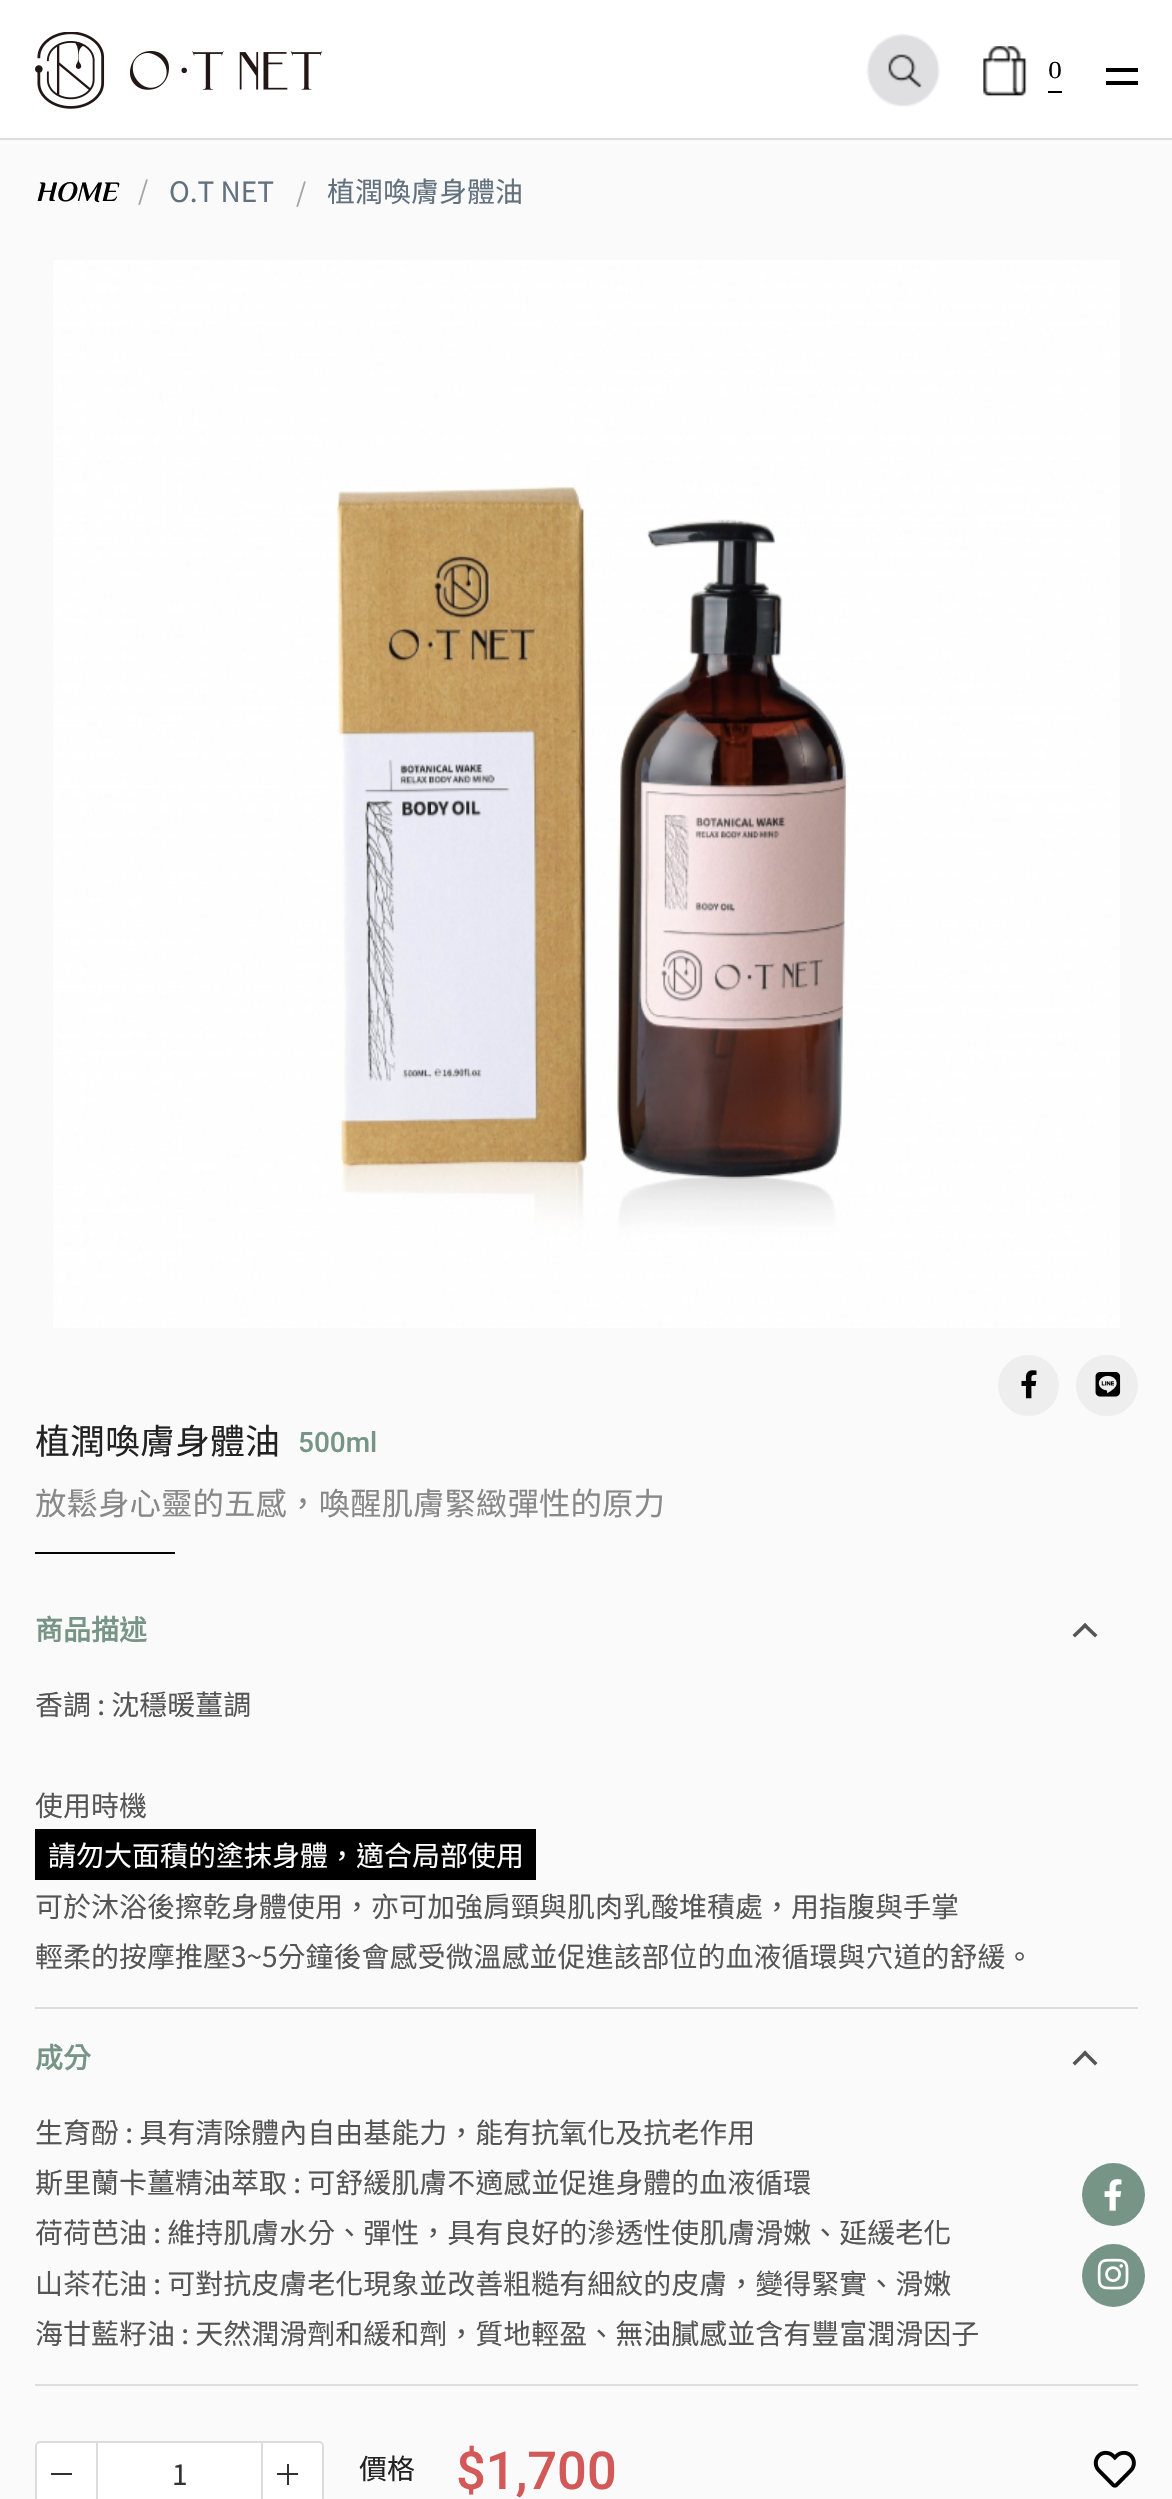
void draw(SkCanvas* canvas) {
  SkPaint paint;
  paint.setAntiAlias(true);
  auto face = [&](const char* family, int weight, float size, bool italic = false) {
    SkFontStyle style(weight, SkFontStyle::kNormal_Width,
      italic ? SkFontStyle::kItalic_Slant : SkFontStyle::kUpright_Slant);
    SkFont result(fontMgr->matchFamilyStyle(family, style), size);
    result.setSubpixel(true);
    return result;
  };
  auto paste = [&](const char* path, float x, float y, float w, float h) {
    auto image = SkImages::DeferredFromEncodedData(SkData::MakeFromFileName(path));
    canvas->drawImageRect(image, SkRect::MakeXYWH(x, y, w, h), SkSamplingOptions());
  };
  auto shape = [&](const char* data, bool evenOdd = false) {
    SkPath result = *SkParsePath::FromSVGString(data);
    if (evenOdd) result.setFillType(SkPathFillType::kEvenOdd);
    return result;
  };
  canvas->clear(0xfffafafa);
  paint.setColor(0xffffffff);
  canvas->drawRect(SkRect::MakeXYWH(0, 0, 1172, 138), paint);
  paint.setColor(0xffdddddd);
  canvas->drawRect(SkRect::MakeXYWH(0, 138, 1172, 2), paint);
  paste("img/1.png", 35, 32, 287, 77);
  paste("img/2.png", 866, 34, 74, 73);
  paste("img/3.png", 983, 46, 44, 51);
  {
    const struct { float x, y, w, h; SkColor color; } items[] = {
      {1048, 91, 14, 2, 0xff000000},
      {1106, 68, 32, 4, 0xff000000},
      {1106, 81, 32, 4, 0xff000000},
    };
    for (auto [x, y, w, h, color] : items) {
      paint.setColor(color);
      canvas->drawRect(SkRect::MakeXYWH(x, y, w, h), paint);
    }
  }
  paste("img/4.png", 53, 260, 1067, 1068);
  paint.setColor(0xffeeeeee);
  canvas->drawCircle(1028.5f, 1385.5f, 30.5f, paint);
  paste("img/5.png", 1021, 1370, 16, 29);
  canvas->drawRoundRect(SkRect::MakeXYWH(1076, 1355, 62, 61), 30.5f, 30.5f, paint);
  paste("img/6.png", 1095, 1372, 26, 25);
  paint.setColor(0xff000000);
  canvas->drawRect(SkRect::MakeXYWH(35, 1552, 140, 2), paint);
  paint.setColor(0xffdddddd);
  canvas->drawRect(SkRect::MakeXYWH(35, 2007, 1103, 2), paint);
  paint.setColor(0xff555555);
  canvas->drawPath(shape("M1072.5 1635L1085 1623L1087.5 1625.5L1075 1637.5Z"), paint);
  canvas->drawPath(shape("M1082.5 1625.5L1085 1623L1097.5 1635L1095 1637.5Z"), paint);
  paint.setColor(0xff000000);
  canvas->drawRect(SkRect::MakeXYWH(35, 1829, 501, 51), paint);
  paint.setColor(0xffdddddd);
  canvas->drawRect(SkRect::MakeXYWH(35, 2384, 1103, 2), paint);
  paint.setColor(0xff555555);
  canvas->drawPath(shape("M1072.5 2063L1085 2050.5L1087.5 2053L1075 2065.5Z"), paint);
  canvas->drawPath(shape("M1082.5 2053L1085 2050.5L1097.5 2063L1095 2065.5Z"), paint);
  paint.setColor(0xffffffff);
  canvas->drawRoundRect(SkRect::MakeXYWH(36, 2442, 287, 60), 4, 4, paint);
  paint.setStroke(true);
  paint.setStrokeWidth(2);
  paint.setColor(0xffdcdcdc);
  canvas->drawRoundRect(SkRect::MakeXYWH(36, 2442, 287, 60), 4, 4, paint);
  paint.setStroke(false);
  {
    const struct { float x, y, w, h; SkColor color; } items[] = {
      {96, 2443, 2, 56, 0xffdcdcdc},
      {51, 2473, 21, 2, 0xff313131},
      {261, 2443, 2, 56, 0xffdcdcdc},
      {277, 2473, 21, 2, 0xff313131},
      {287, 2464, 2, 21, 0xff313131},
    };
    for (auto [x, y, w, h, color] : items) {
      paint.setColor(color);
      canvas->drawRect(SkRect::MakeXYWH(x, y, w, h), paint);
    }
  }
  paste("img/7.png", 1093, 2450, 43, 38);
  paint.setColor(0xff779587);
  canvas->drawCircle(1113.5f, 2194.5f, 31.5f, paint);
  paste("img/8.png", 1104, 2179, 18, 32);
  canvas->drawCircle(1113.5f, 2275.5f, 31.5f, paint);
  paste("img/9.png", 1097, 2258, 32, 32);
  auto f0 = face("Philosopher", 400, 24);
  paint.setColor(0xff000000);
  canvas->drawString("0", 1048, 78, f0, paint);
  auto f1 = face("Philosopher", 700, 28, true);
  canvas->drawString("HOME", 35, 201, f1, paint);
  auto f2 = face("Noto Sans TC", 400, 26);
  paint.setColor(0xffa5a5a5);
  canvas->drawString("/", 138, 200, f2, paint);
  auto f3 = face("Noto Sans TC", 400, 28);
  paint.setColor(0xff63717f);
  canvas->drawString("O.T NET", 169, 202, f3, paint);
  paint.setColor(0xffa5a5a5);
  canvas->drawString("/", 296, 202, f2, paint);
  paint.setColor(0xff63717f);
  canvas->drawString("植潤喚膚身體油", 327, 202, f3, paint);
  auto f4 = face("Noto Sans TC", 400, 35);
  paint.setColor(0xff222222);
  canvas->drawString("植潤喚膚身體油", 35, 1454, f4, paint);
  auto f5 = face("Roboto", 500, 28);
  paint.setColor(0xff779587);
  canvas->drawString("500ml", 298, 1452, f5, paint);
  auto f6 = face("Noto Sans TC", 400, 31.5f);
  paint.setColor(0xff888888);
  canvas->drawString("放鬆身心靈的五感，喚醒肌膚緊緻彈性的原力", 35, 1515, f6, paint);
  auto f7 = face("Noto Sans TC", 700, 28);
  paint.setColor(0xff779587);
  canvas->drawString("商品描述", 35, 1640, f7, paint);
  paint.setColor(0xff555555);
  canvas->drawString("香調 : 沈穩暖薑調", 35, 1715, f3, paint);
  canvas->drawString("使用時機", 35, 1816, f3, paint);
  paint.setColor(0xffffffff);
  canvas->drawString("請勿大面積的塗抹身體，適合局部使用", 48, 1866, f3, paint);
  paint.setColor(0xff555555);
  canvas->drawString("可於沐浴後擦乾身體使用，亦可加強肩頸與肌肉乳酸堆積處，用指腹與手掌", 35, 1917, f3, paint);
  canvas->drawString("輕柔的按摩推壓3~5分鐘後會感受微溫感並促進該部位的血液循環與穴道的舒緩。", 35, 1967, f3, paint);
  paint.setColor(0xff779587);
  canvas->drawString("成分", 35, 2068, f7, paint);
  paint.setColor(0xff555555);
  {
    const struct { const char* s; float x, y; } items[] = {
      {"生育酚 : 具有清除體內自由基能力，能有抗氧化及抗老作用", 35, 2143},
      {"斯里蘭卡薑精油萃取 : 可舒緩肌膚不適感並促進身體的血液循環", 35, 2193},
      {"荷荷芭油 : 維持肌膚水分、彈性，具有良好的滲透性使肌膚滑嫩、延緩老化", 35, 2243},
      {"山茶花油 : 可對抗皮膚老化現象並改善粗糙有細紋的皮膚，變得緊實、滑嫩", 35, 2294},
      {"海甘藍籽油 : 天然潤滑劑和緩和劑，質地輕盈、無油膩感並含有豐富潤滑因子", 35, 2344},
    };
    for (auto [s, x, y] : items) {
      canvas->drawString(s, x, y, f3, paint);
    }
  }
  paint.setColor(0xff333333);
  canvas->drawString("1", 172, 2485, f3, paint);
  paint.setColor(0xff222222);
  canvas->drawString("價格", 359, 2479, f3, paint);
  auto f8 = face("Roboto", 500, 52.5f);
  paint.setColor(0xffd35959);
  canvas->drawString("$1,700", 456, 2489, f8, paint);
}
